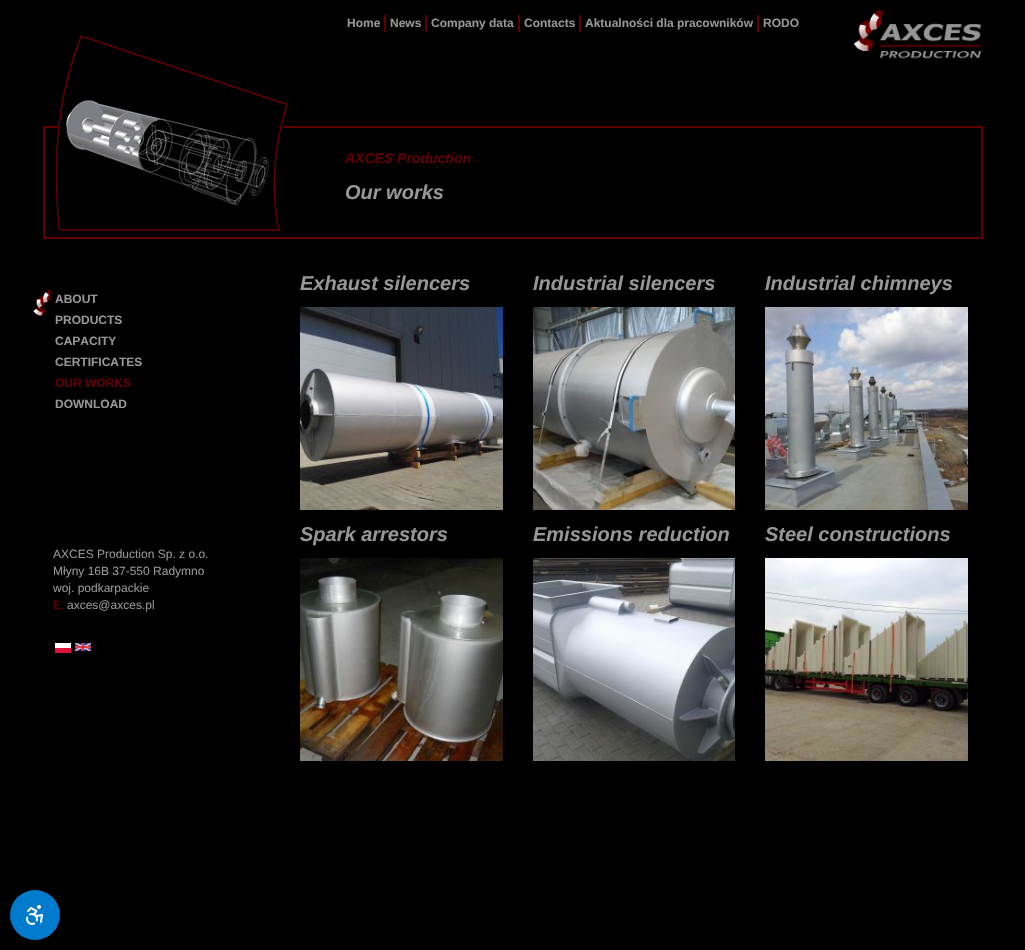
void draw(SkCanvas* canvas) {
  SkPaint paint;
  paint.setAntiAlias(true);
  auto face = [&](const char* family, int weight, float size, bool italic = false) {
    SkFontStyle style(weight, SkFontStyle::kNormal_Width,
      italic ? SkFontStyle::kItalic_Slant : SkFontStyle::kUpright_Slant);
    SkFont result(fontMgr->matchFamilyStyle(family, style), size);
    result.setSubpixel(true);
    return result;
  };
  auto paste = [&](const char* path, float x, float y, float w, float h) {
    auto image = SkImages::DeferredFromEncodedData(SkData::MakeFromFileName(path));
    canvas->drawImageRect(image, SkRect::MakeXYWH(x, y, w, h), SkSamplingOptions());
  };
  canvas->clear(0xff000000);
  {
    const struct { float x, y, w, h; SkColor color; } items[] = {
      {384, 15, 2, 17, 0xff620000},
      {425, 15, 2, 17, 0xff620000},
      {518, 15, 2, 17, 0xff620000},
      {579, 15, 2, 17, 0xff620000},
      {757, 15, 2, 17, 0xff620000},
    };
    for (auto [x, y, w, h, color] : items) {
      paint.setColor(color);
      canvas->drawRect(SkRect::MakeXYWH(x, y, w, h), paint);
    }
  }
  paste("img/1.png", 854, 9, 128, 50);
  paint.setStroke(true);
  paint.setStrokeWidth(2);
  canvas->drawRect(SkRect::MakeXYWH(44, 127, 938, 111), paint);
  paste("img/2.png", 55, 35, 233, 196);
  paste("img/3.png", 33, 289, 19, 27);
  paste("img/4.png", 55, 643, 16, 10);
  paste("img/5.png", 75, 643, 16, 8);
  paste("img/6.png", 300, 307, 203, 203);
  paste("img/7.png", 533, 307, 202, 203);
  paste("img/8.png", 765, 307, 203, 203);
  paste("img/9.png", 300, 558, 203, 203);
  paste("img/10.png", 533, 558, 202, 203);
  paste("img/11.png", 765, 558, 203, 203);
  paint.setStroke(false);
  paint.setColor(0xff007acc);
  canvas->drawCircle(35, 915, 25, paint);
  paste("img/12.png", 26, 905, 17, 20);
  auto f0 = face("Liberation Sans", 700, 12);
  paint.setColor(0xff969696);
  {
    const struct { const char* s; float x, y; } items[] = {
      {"Home", 347, 27},
      {"News", 390, 27},
      {"Company data", 431, 27},
      {"Contacts", 524, 27},
      {"Aktualności dla pracowników", 585, 27},
      {"RODO", 763, 27},
    };
    for (auto [s, x, y] : items) {
      canvas->drawString(s, x, y, f0, paint);
    }
  }
  auto f1 = face("Liberation Sans", 700, 14, true);
  paint.setColor(0xff620000);
  canvas->drawString("AXCES Production", 345, 163, f1, paint);
  auto f2 = face("Liberation Sans", 700, 20, true);
  paint.setColor(0xff969696);
  canvas->drawString("Our works", 345, 199, f2, paint);
  {
    const struct { const char* s; float x, y; } items[] = {
      {"ABOUT", 55, 303},
      {"PRODUCTS", 55, 324},
      {"CAPACITY", 55, 345},
      {"CERTIFICATES", 55, 366},
    };
    for (auto [s, x, y] : items) {
      canvas->drawString(s, x, y, f0, paint);
    }
  }
  paint.setColor(0xff620000);
  canvas->drawString("OUR WORKS", 55, 387, f0, paint);
  paint.setColor(0xff969696);
  canvas->drawString("DOWNLOAD", 55, 408, f0, paint);
  auto f3 = face("Liberation Sans", 400, 12);
  {
    const struct { const char* s; float x, y; } items[] = {
      {"AXCES Production Sp. z o.o.", 53, 558},
      {"Młyny 16B 37-550 Radymno", 53, 575},
      {"woj. podkarpackie", 53, 592},
    };
    for (auto [s, x, y] : items) {
      canvas->drawString(s, x, y, f3, paint);
    }
  }
  paint.setColor(0xff620000);
  canvas->drawString("E:", 53, 609, f3, paint);
  paint.setColor(0xff969696);
  canvas->drawString("axces@axces.pl", 67, 609, f3, paint);
  {
    const struct { const char* s; float x, y; } items[] = {
      {"Exhaust silencers", 300, 290},
      {"Industrial silencers", 533, 290},
      {"Industrial chimneys", 765, 290},
      {"Spark arrestors", 300, 541},
      {"Emissions reduction", 533, 541},
      {"Steel constructions", 765, 541},
    };
    for (auto [s, x, y] : items) {
      canvas->drawString(s, x, y, f2, paint);
    }
  }
}
